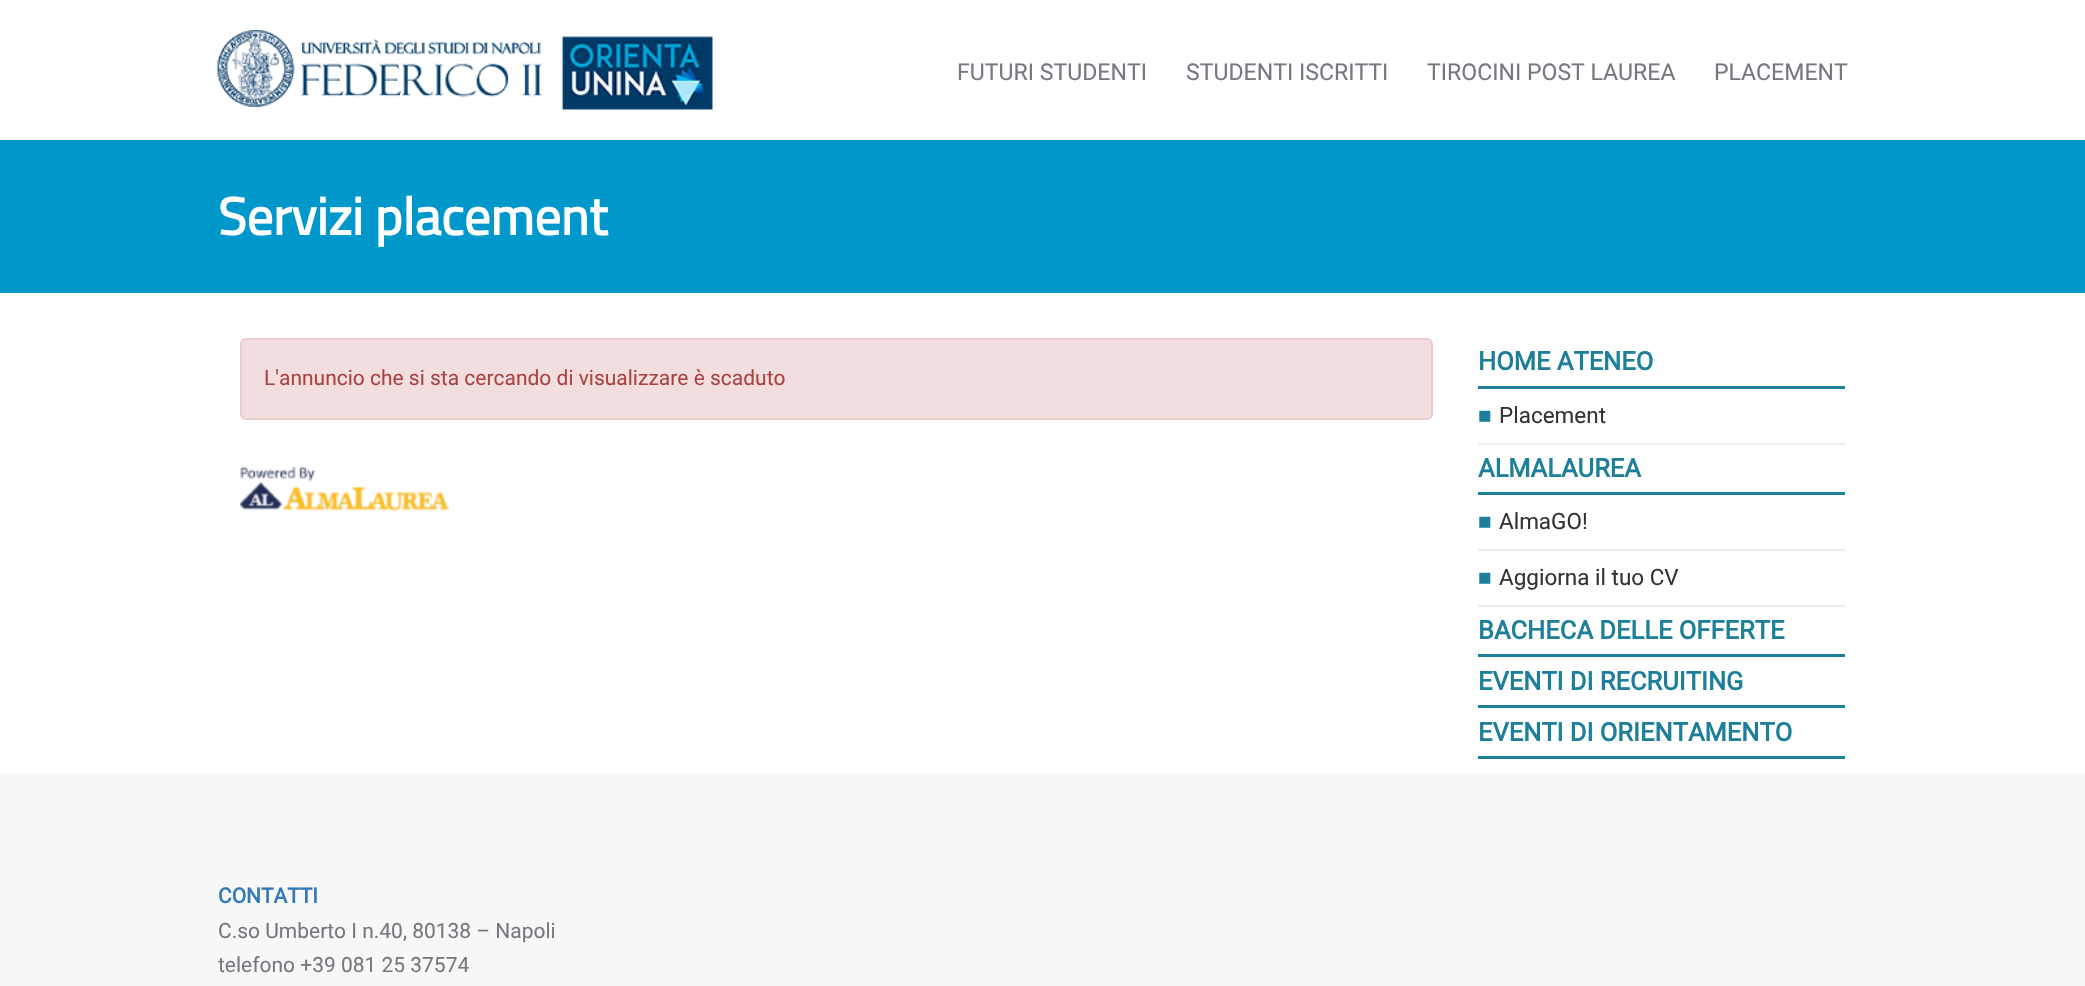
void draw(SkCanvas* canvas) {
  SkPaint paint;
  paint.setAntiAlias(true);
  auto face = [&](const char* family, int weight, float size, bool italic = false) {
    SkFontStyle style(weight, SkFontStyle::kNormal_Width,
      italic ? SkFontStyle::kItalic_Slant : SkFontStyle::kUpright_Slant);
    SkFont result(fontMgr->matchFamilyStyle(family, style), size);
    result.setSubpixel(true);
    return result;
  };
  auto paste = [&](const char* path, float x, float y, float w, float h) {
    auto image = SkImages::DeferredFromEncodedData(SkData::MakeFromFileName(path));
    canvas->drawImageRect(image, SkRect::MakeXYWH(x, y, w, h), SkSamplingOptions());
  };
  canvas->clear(0xffffffff);
  paste("img/1.png", 217, 30, 496, 80);
  paint.setColor(0xff0097ca);
  canvas->drawRect(SkRect::MakeXYWH(0, 140, 2085, 153), paint);
  paint.setColor(0xfff2dede);
  canvas->drawRoundRect(SkRect::MakeXYWH(241, 339, 1191, 80), 5, 5, paint);
  paint.setStroke(true);
  paint.setStrokeWidth(2);
  paint.setColor(0xffebccd1);
  canvas->drawRoundRect(SkRect::MakeXYWH(241, 339, 1191, 80), 5, 5, paint);
  paste("img/2.png", 240, 466, 210, 46);
  paint.setStroke(false);
  {
    const struct { float x, y, w, h; SkColor color; } items[] = {
      {1478, 386, 367, 3, 0xff1e7f9a},
      {1478, 443, 367, 2, 0xffededed},
      {1478, 492, 367, 3, 0xff1e7f9a},
      {1478, 549, 367, 2, 0xffededed},
      {1478, 605, 367, 2, 0xffededed},
      {1478, 654, 367, 3, 0xff1e7f9a},
      {1478, 705, 367, 3, 0xff1e7f9a},
      {1478, 756, 367, 3, 0xff1e7f9a},
      {0, 774, 2085, 212, 0xfff7f7f7},
    };
    for (auto [x, y, w, h, color] : items) {
      paint.setColor(color);
      canvas->drawRect(SkRect::MakeXYWH(x, y, w, h), paint);
    }
  }
  auto f0 = face("Roboto", 400, 23.1f);
  paint.setColor(0xff77777f);
  {
    const struct { const char* s; float x, y; } items[] = {
      {"FUTURI STUDENTI", 957, 80},
      {"STUDENTI ISCRITTI", 1186, 80},
      {"TIROCINI POST LAUREA", 1427, 80},
      {"PLACEMENT", 1714, 80},
    };
    for (auto [s, x, y] : items) {
      canvas->drawString(s, x, y, f0, paint);
    }
  }
  auto f1 = face("Titillium Web", 700, 52.5f);
  paint.setColor(0xffffffff);
  canvas->drawString("Servizi placement", 218, 235, f1, paint);
  auto f2 = face("Roboto", 400, 21);
  paint.setColor(0xffa94442);
  canvas->drawString("L'annuncio che si sta cercando di visualizzare è scaduto", 264, 385, f2, paint);
  auto f3 = face("Roboto", 700, 25.5f);
  paint.setColor(0xff1e7f9a);
  canvas->drawString("HOME ATENEO", 1478, 370, f3, paint);
  auto f4 = face("Liberation Sans", 400, 22.5f);
  canvas->drawString("■", 1478, 423, f4, paint);
  auto f5 = face("Roboto", 400, 22.5f);
  paint.setColor(0xff333333);
  canvas->drawString("Placement", 1499, 423, f5, paint);
  paint.setColor(0xff1e7f9a);
  canvas->drawString("ALMALAUREA", 1478, 477, f3, paint);
  canvas->drawString("■", 1478, 529, f4, paint);
  paint.setColor(0xff333333);
  canvas->drawString("AlmaGO!", 1499, 529, f5, paint);
  paint.setColor(0xff1e7f9a);
  canvas->drawString("■", 1478, 585, f4, paint);
  paint.setColor(0xff333333);
  canvas->drawString("Aggiorna il tuo CV", 1499, 585, f5, paint);
  paint.setColor(0xff1e7f9a);
  {
    const struct { const char* s; float x, y; } items[] = {
      {"BACHECA DELLE OFFERTE", 1478, 639},
      {"EVENTI DI RECRUITING", 1478, 690},
      {"EVENTI DI ORIENTAMENTO", 1478, 741},
    };
    for (auto [s, x, y] : items) {
      canvas->drawString(s, x, y, f3, paint);
    }
  }
  auto f6 = face("Roboto", 700, 21);
  paint.setColor(0xff337ab7);
  canvas->drawString("CONTATTI", 218, 903, f6, paint);
  paint.setColor(0xff77777f);
  canvas->drawString("C.so Umberto I n.40, 80138 – Napoli", 218, 938, f2, paint);
  canvas->drawString("telefono +39 081 25 37574", 218, 972, f2, paint);
}
